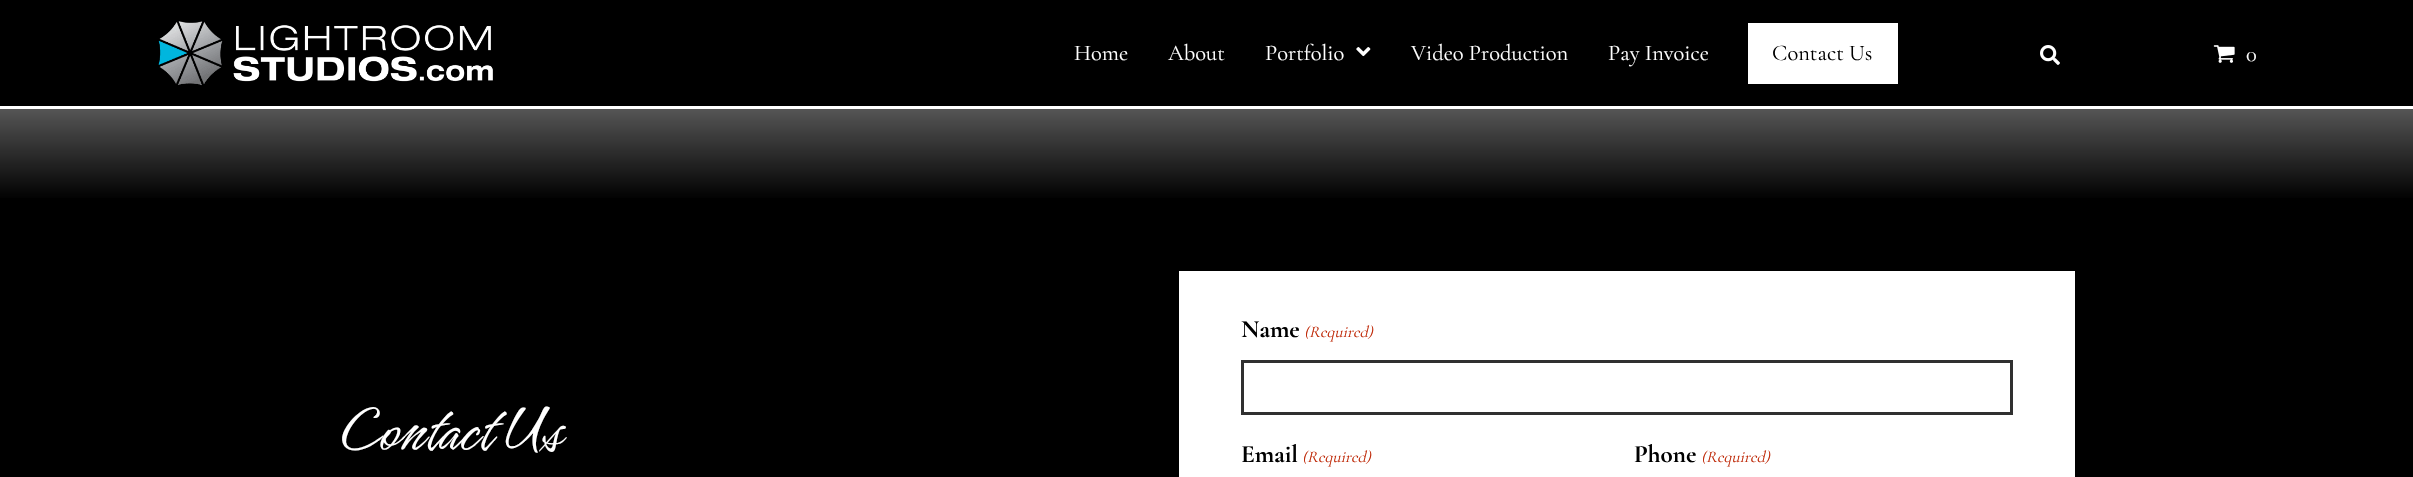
void draw(SkCanvas* canvas) {
  SkPaint paint;
  paint.setAntiAlias(true);
  auto face = [&](const char* family, int weight, float size, bool italic = false) {
    SkFontStyle style(weight, SkFontStyle::kNormal_Width,
      italic ? SkFontStyle::kItalic_Slant : SkFontStyle::kUpright_Slant);
    SkFont result(fontMgr->matchFamilyStyle(family, style), size);
    result.setSubpixel(true);
    return result;
  };
  auto paste = [&](const char* path, float x, float y, float w, float h) {
    auto image = SkImages::DeferredFromEncodedData(SkData::MakeFromFileName(path));
    canvas->drawImageRect(image, SkRect::MakeXYWH(x, y, w, h), SkSamplingOptions());
  };
  canvas->clear(0xff000000);
  paint.setColor(0xffffffff);
  canvas->drawRect(SkRect::MakeXYWH(0, 106, 2413, 3), paint);
  paste("img/1.png", 158, 21, 335, 65);
  paste("img/2.png", 1356, 47, 15, 10);
  canvas->drawRect(SkRect::MakeXYWH(1748, 23, 150, 61), paint);
  paste("img/3.png", 2040, 45, 20, 20);
  paste("img/4.png", 2213, 45, 22, 18);
  {
    const SkColor colors[] = {0xff555555, 0xff000000, 0xff000000, 0xff02596f};
    const float stops[] = {0, 0.1f, 0.9f, 1};
    const SkPoint ends[] = {{1207, 109}, {1207, 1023}};
    paint.setShader(SkGradientShader::MakeLinear(ends, colors, stops, 4, SkTileMode::kClamp));
    paint.setAlpha(255);
  }
  canvas->drawRect(SkRect::MakeXYWH(0, 109, 2413, 89), paint);
  paint.setShader(nullptr);
  paint.setColor(0xffffffff);
  canvas->drawRect(SkRect::MakeXYWH(1179, 271, 896, 206), paint);
  paint.setStroke(true);
  paint.setStrokeWidth(3);
  paint.setColor(0xff303030);
  canvas->drawRect(SkRect::MakeXYWH(1242.5f, 361.5f, 769, 52), paint);
  auto f0 = face("Cormorant Garamond", 400, 22.5f);
  paint.setStroke(false);
  paint.setColor(0xffffffff);
  {
    const struct { const char* s; float x, y; } items[] = {
      {"Home", 1074, 60},
      {"About", 1168, 60},
      {"Portfolio", 1265, 60},
      {"Video Production", 1411, 60},
      {"Pay Invoice", 1608, 60},
    };
    for (auto [s, x, y] : items) {
      canvas->drawString(s, x, y, f0, paint);
    }
  }
  paint.setColor(0xff000000);
  canvas->drawString("Contact Us", 1772, 60, f0, paint);
  paint.setColor(0xffffffff);
  canvas->drawString("0", 2246, 61, f0, paint);
  auto f1 = face("Hurricane", 400, 70);
  canvas->drawString("Contact Us", 339, 449, f1, paint);
  auto f2 = face("Cormorant Garamond", 700, 25);
  paint.setColor(0xff000000);
  canvas->drawString("Name", 1241, 337, f2, paint);
  auto f3 = face("Cormorant Garamond", 400, 16.25f, true);
  paint.setColor(0xffc02b0a);
  canvas->drawString("(Required)", 1304, 337, f3, paint);
  paint.setColor(0xff000000);
  canvas->drawString("Email", 1241, 462, f2, paint);
  paint.setColor(0xffc02b0a);
  canvas->drawString("(Required)", 1302, 462, f3, paint);
  paint.setColor(0xff000000);
  canvas->drawString("Phone", 1634, 462, f2, paint);
  paint.setColor(0xffc02b0a);
  canvas->drawString("(Required)", 1701, 462, f3, paint);
}
